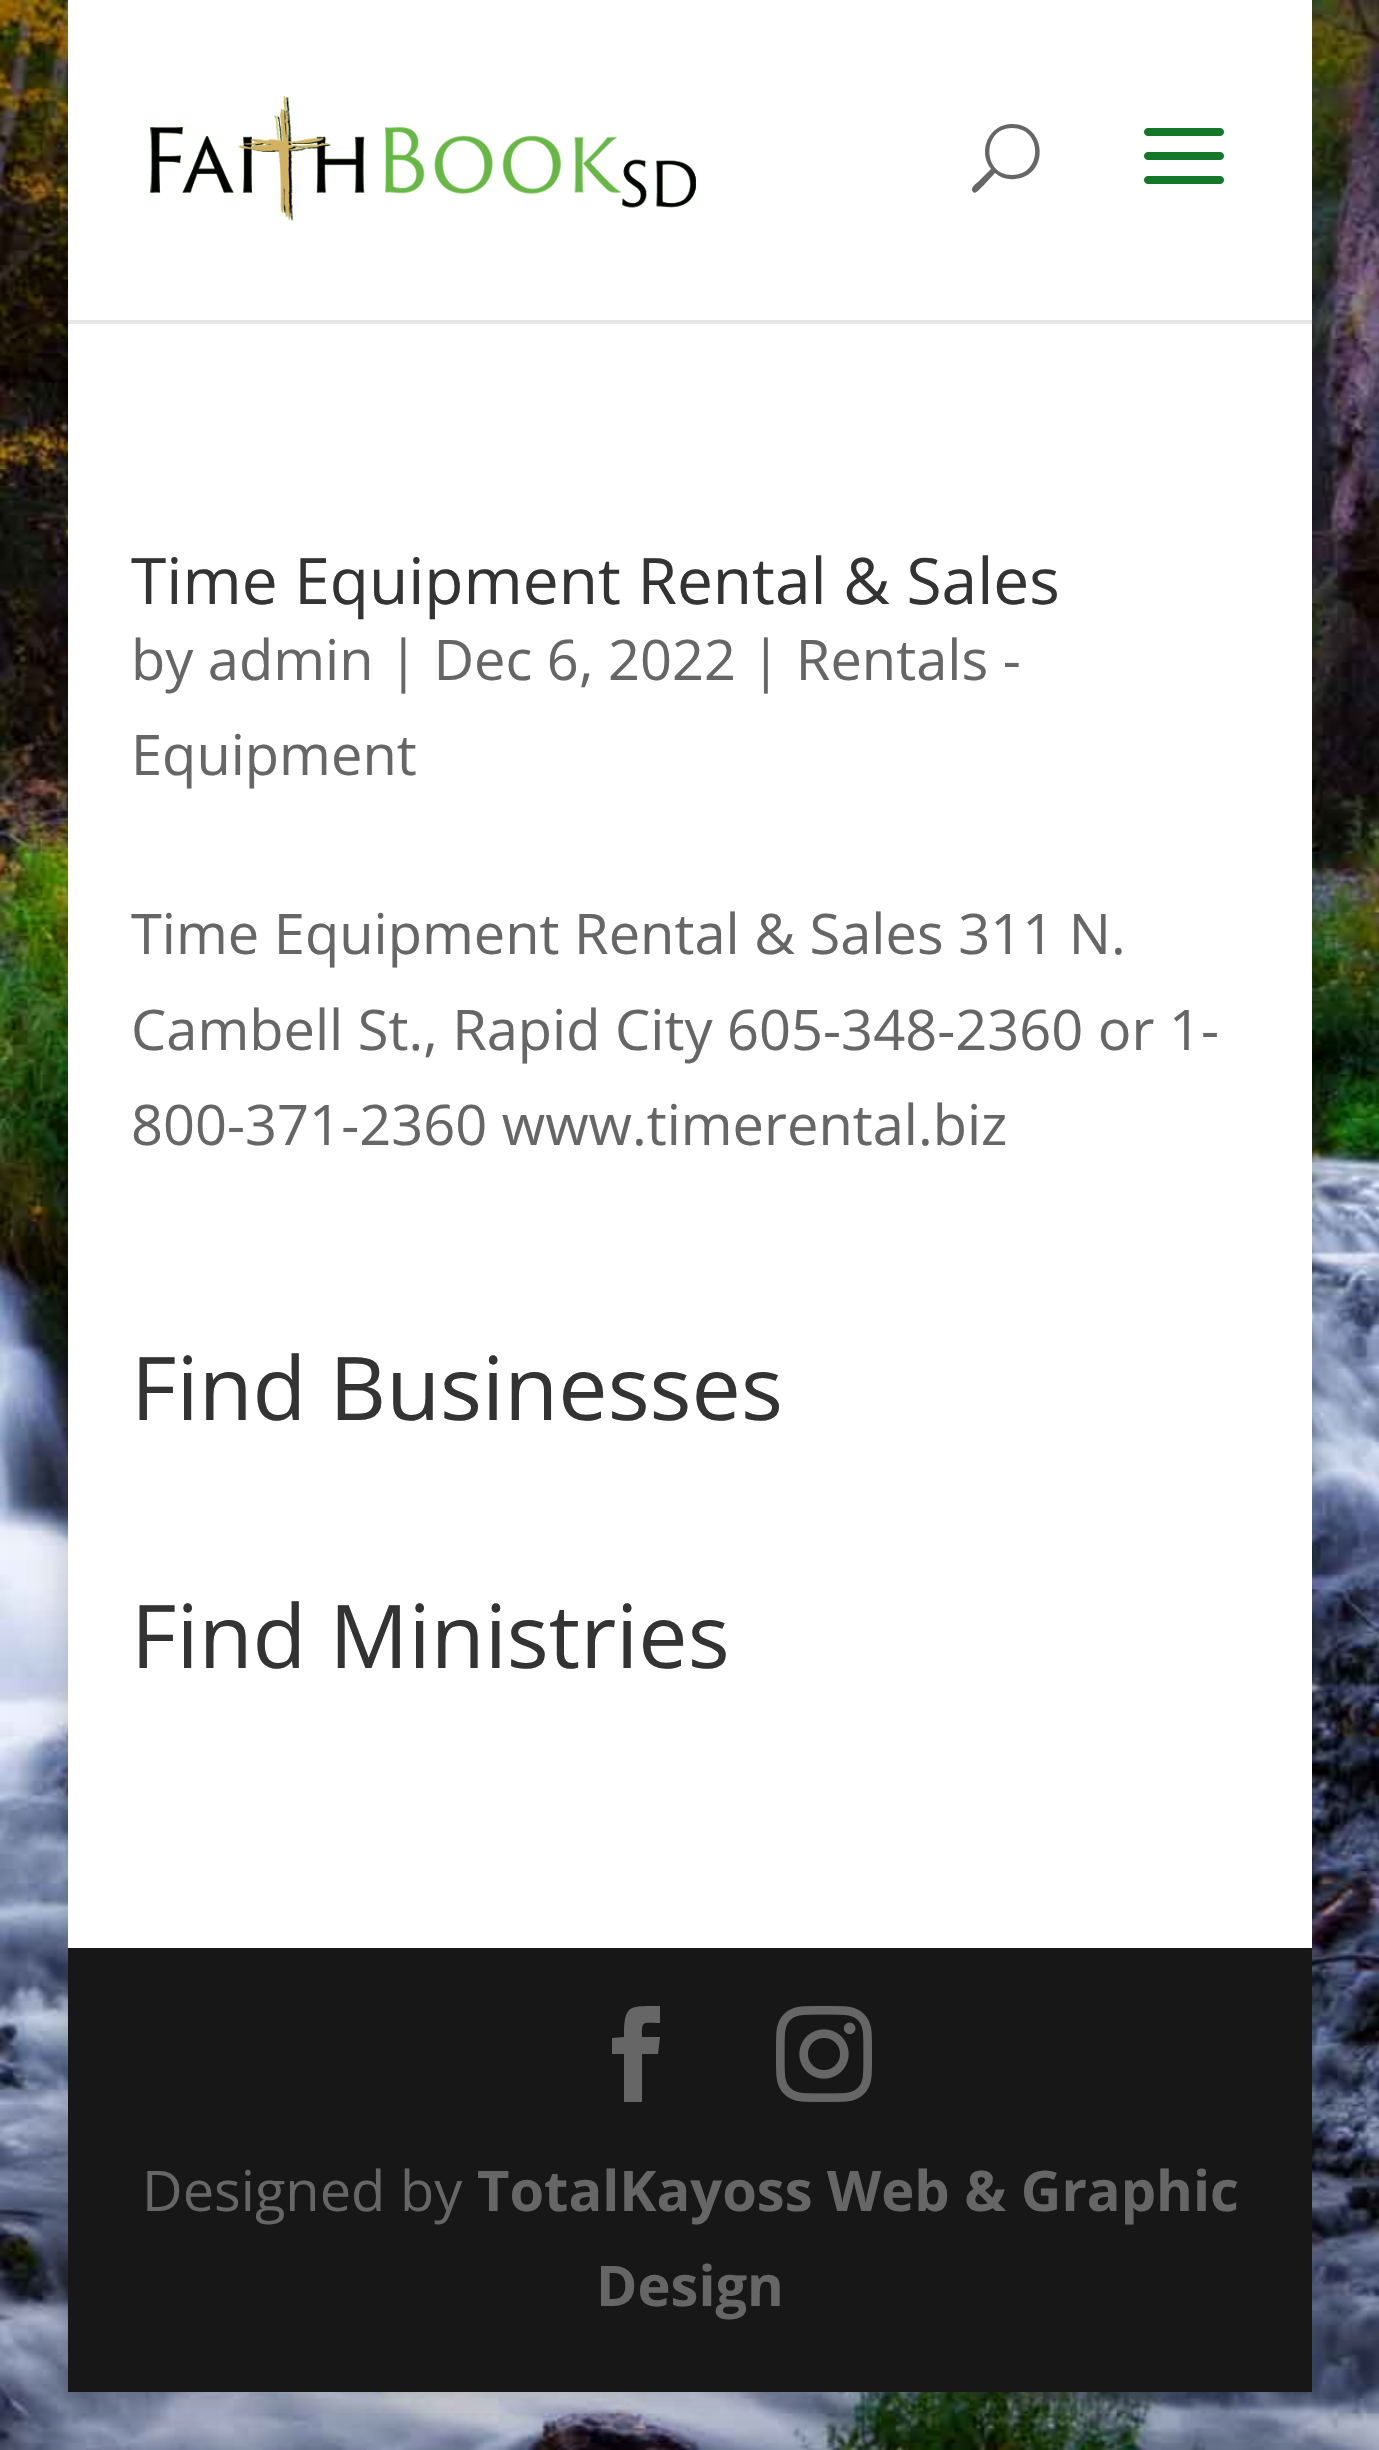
void draw(SkCanvas* canvas) {
  SkPaint paint;
  paint.setAntiAlias(true);
  auto face = [&](const char* family, int weight, float size, bool italic = false) {
    SkFontStyle style(weight, SkFontStyle::kNormal_Width,
      italic ? SkFontStyle::kItalic_Slant : SkFontStyle::kUpright_Slant);
    SkFont result(fontMgr->matchFamilyStyle(family, style), size);
    result.setSubpixel(true);
    return result;
  };
  auto paste = [&](const char* path, float x, float y, float w, float h) {
    auto image = SkImages::DeferredFromEncodedData(SkData::MakeFromFileName(path));
    canvas->drawImageRect(image, SkRect::MakeXYWH(x, y, w, h), SkSamplingOptions());
  };
  auto shape = [&](const char* data, bool evenOdd = false) {
    SkPath result = *SkParsePath::FromSVGString(data);
    if (evenOdd) result.setFillType(SkPathFillType::kEvenOdd);
    return result;
  };
  canvas->clear(0xffffffff);
  paste("img/1.png", 0, 0, 1379, 2450);
  paint.setColor(0x33000000);
  paint.setMaskFilter(SkMaskFilter::MakeBlur(kNormal_SkBlurStyle, 20));
  canvas->drawRect(SkRect::MakeXYWH(68, 0, 1244, 2392), paint);
  paint.setMaskFilter(nullptr);
  paint.setColor(0xffe6e6e6);
  canvas->drawRect(SkRect::MakeXYWH(68, 320, 1244, 4), paint);
  paint.setColor(0xffffffff);
  canvas->drawRect(SkRect::MakeXYWH(68, 0, 1244, 320), paint);
  paste("img/2.png", 150, 96, 546, 125);
  paint.setColor(0xff666666);
  canvas->drawPath(shape("M1012 124C989 124 977 151 991 169L979 181C977 183 969 188 973 192C976 195 981 187 983 186L995 173C1001 178 1008 180 1015 179C1050 176 1047 124 1012 124ZM1012 175C982 175 982 128 1012 128C1043 128 1043 175 1012 175Z"), paint);
  paste("img/3.png", 1144, 128, 80, 56);
  paint.setColor(0xffffffff);
  canvas->drawRect(SkRect::MakeXYWH(68, 324, 1244, 1624), paint);
  paint.setColor(0xff171717);
  canvas->drawRect(SkRect::MakeXYWH(68, 1948, 1244, 444), paint);
  paint.setColor(0xff666666);
  canvas->drawPath(shape("M624 2102H642V2054H658L660 2037H642C642 2020 642 2023 660 2023V2006C629 2006 624 2004 624 2037L612 2038V2054H624Z"), paint);
  paste("img/4.png", 776, 2006, 96, 96);
  auto f0 = face("Open Sans", 400, 64);
  paint.setColor(0xff333333);
  canvas->drawString("Time Equipment Rental & Sales", 131, 604, f0, paint);
  auto f1 = face("Open Sans", 400, 56);
  paint.setColor(0xff666666);
  {
    const struct { const char* s; float x, y; } items[] = {
      {"by admin | Dec 6, 2022 | Rentals -", 131, 680},
      {"Equipment", 131, 775},
      {"Time Equipment Rental & Sales 311 N.", 131, 954},
      {"Cambell St., Rapid City 605-348-2360 or 1-", 131, 1050},
      {"800-371-2360 www.timerental.biz", 131, 1145},
    };
    for (auto [s, x, y] : items) {
      canvas->drawString(s, x, y, f1, paint);
    }
  }
  auto f2 = face("Open Sans", 400, 88);
  paint.setColor(0xff333333);
  canvas->drawString("Find Businesses", 131, 1420, f2, paint);
  canvas->drawString("Find Ministries", 131, 1668, f2, paint);
  paint.setColor(0xff666666);
  canvas->drawString("Designed by", 142, 2211, f1, paint);
  auto f3 = face("Open Sans", 700, 56);
  canvas->drawString("TotalKayoss Web & Graphic", 477, 2211, f3, paint);
  canvas->drawString("Design", 596, 2306, f3, paint);
}
